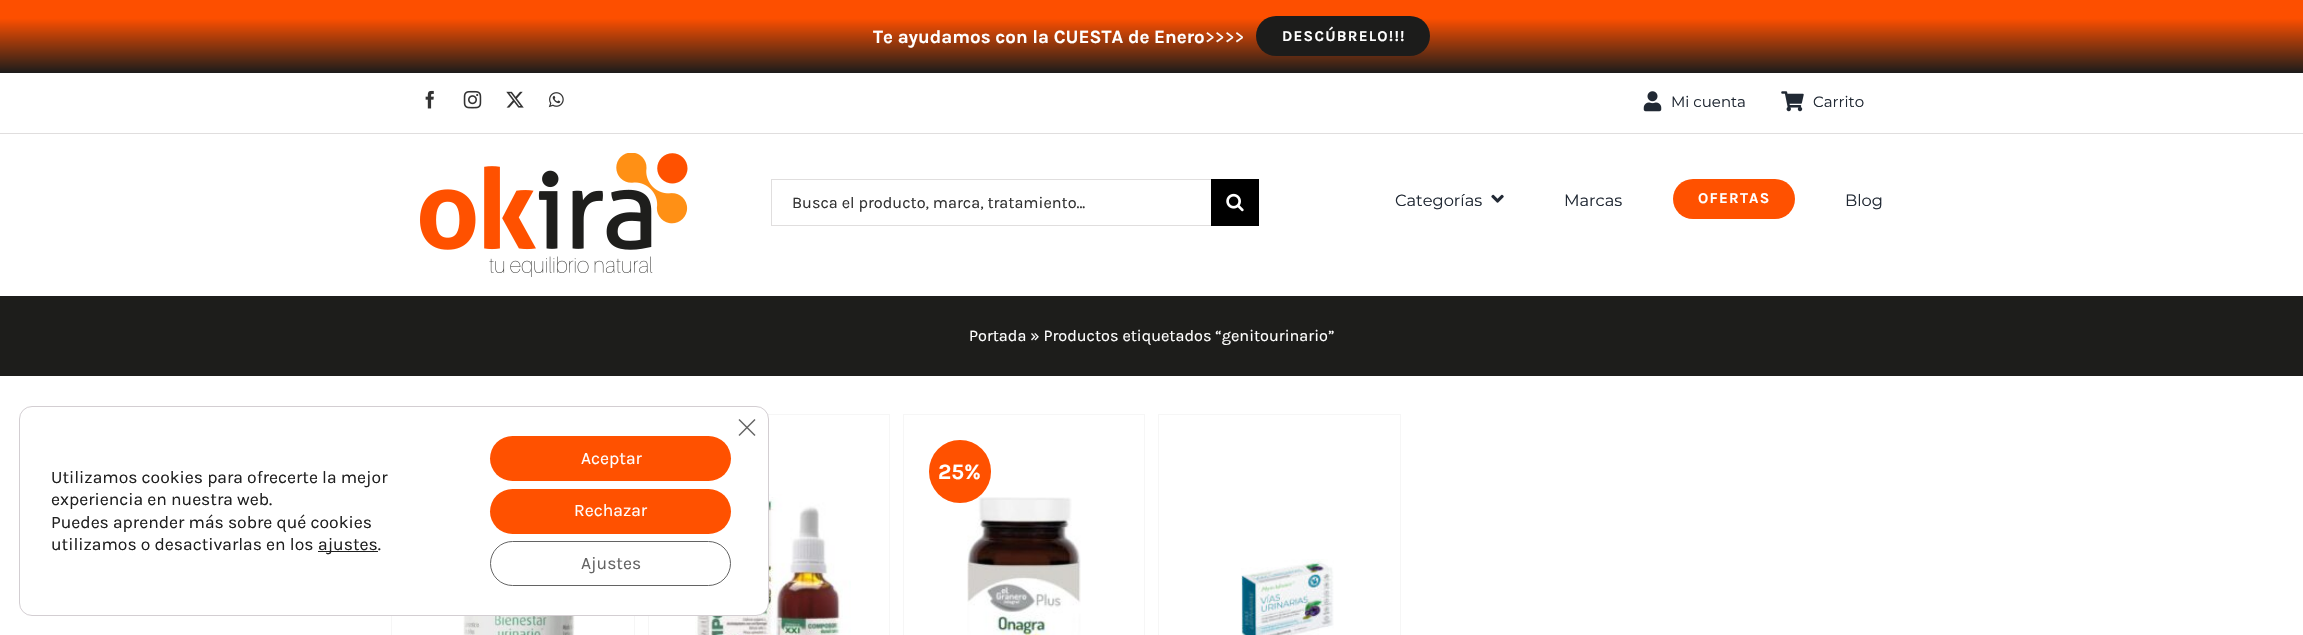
void draw(SkCanvas* canvas) {
  SkPaint paint;
  paint.setAntiAlias(true);
  auto face = [&](const char* family, int weight, float size, bool italic = false) {
    SkFontStyle style(weight, SkFontStyle::kNormal_Width,
      italic ? SkFontStyle::kItalic_Slant : SkFontStyle::kUpright_Slant);
    SkFont result(fontMgr->matchFamilyStyle(family, style), size);
    result.setSubpixel(true);
    return result;
  };
  auto writeSpaced = [&](const char* s, float x, float y, const SkFont& font, const SkPaint& ink, float letter, float word) {
    std::vector<SkGlyphID> glyphs(font.countText(s, strlen(s), SkTextEncoding::kUTF8));
    std::vector<float> xs(glyphs.size());
    font.textToGlyphs(s, strlen(s), SkTextEncoding::kUTF8, glyphs);
    font.getXPos(glyphs, xs, x);
    float extra = 0;
    for (size_t i = 0; i < glyphs.size(); i++) {
      xs[i] += extra;
      extra += letter + word * (glyphs[i] == font.unicharToGlyph(' '));
    }
    canvas->drawTextBlob(SkTextBlob::MakeFromPosHGlyphs(glyphs, xs, y, font), 0, 0, ink);
  };
  auto paste = [&](const char* path, float x, float y, float w, float h) {
    auto image = SkImages::DeferredFromEncodedData(SkData::MakeFromFileName(path));
    canvas->drawImageRect(image, SkRect::MakeXYWH(x, y, w, h), SkSamplingOptions());
  };
  auto shape = [&](const char* data, bool evenOdd = false) {
    SkPath result = *SkParsePath::FromSVGString(data);
    if (evenOdd) result.setFillType(SkPathFillType::kEvenOdd);
    return result;
  };
  canvas->clear(0xffffffff);
  {
    const SkColor colors[] = {0xfffd4f00, 0xff1c1c1b};
    const float stops[] = {0.25f, 1};
    const SkPoint ends[] = {{1152, 0}, {1152, 73}};
    paint.setShader(SkGradientShader::MakeLinear(ends, colors, stops, 2, SkTileMode::kClamp));
    paint.setAlpha(255);
  }
  canvas->drawRect(SkRect::MakeXYWH(0, 0, 2303, 73), paint);
  paint.setShader(nullptr);
  paint.setColor(0xff1c1c1b);
  canvas->drawRoundRect(SkRect::MakeXYWH(1256, 16, 174, 40), 20, 20, paint);
  paint.setColor(0xffe0dede);
  canvas->drawRect(SkRect::MakeXYWH(0, 133, 2303, 1), paint);
  paste("img/1.png", 425, 90, 9, 19);
  paste("img/2.png", 463, 90, 19, 19);
  paste("img/3.png", 506, 91, 18, 17);
  paste("img/4.png", 548, 92, 16, 16);
  paste("img/5.png", 1643, 91, 19, 21);
  paste("img/6.png", 1781, 91, 23, 21);
  paste("img/7.png", 420, 153, 268, 124);
  {
    const struct { float x, y, w, h; SkColor color; } items[] = {
      {771, 179, 440, 1, 0xffe0dede},
      {771, 225, 440, 1, 0xffe0dede},
      {771, 179, 1, 47, 0xffe0dede},
      {1211, 179, 48, 47, 0xff000000},
    };
    for (auto [x, y, w, h, color] : items) {
      paint.setColor(color);
      canvas->drawRect(SkRect::MakeXYWH(x, y, w, h), paint);
    }
  }
  paste("img/8.png", 1226, 193, 18, 19);
  paste("img/9.png", 1491, 194, 13, 9);
  paint.setColor(0xffff5100);
  canvas->drawRoundRect(SkRect::MakeXYWH(1673, 179, 122, 40), 20, 20, paint);
  paint.setColor(0xff1d1d1b);
  canvas->drawRect(SkRect::MakeXYWH(0, 296, 2303, 80), paint);
  paint.setStroke(true);
  paint.setStrokeWidth(1);
  paint.setColor(0xfff6f6f6);
  canvas->drawRect(SkRect::MakeXYWH(391.5f, 414.5f, 243, 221), paint);
  paste("img/10.png", 463, 616, 112, 19);
  canvas->drawRect(SkRect::MakeXYWH(648.5f, 414.5f, 241, 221), paint);
  paste("img/11.png", 695, 494, 156, 141);
  canvas->drawRect(SkRect::MakeXYWH(903.5f, 414.5f, 241, 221), paint);
  paste("img/12.png", 967, 497, 114, 138);
  paint.setStroke(false);
  paint.setColor(0xffff5100);
  canvas->drawRoundRect(SkRect::MakeXYWH(929, 440, 62, 63), 31, 31, paint);
  paint.setStroke(true);
  paint.setColor(0xfff6f6f6);
  canvas->drawRect(SkRect::MakeXYWH(1158.5f, 414.5f, 242, 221), paint);
  paste("img/13.png", 1241, 559, 93, 76);
  paint.setStroke(false);
  paint.setColor(0xffffffff);
  canvas->drawRoundRect(SkRect::MakeXYWH(19.5f, 406.5f, 749, 209), 12.5f, 12.5f, paint);
  paint.setStroke(true);
  paint.setColor(0xffd3ced2);
  canvas->drawRoundRect(SkRect::MakeXYWH(19.5f, 406.5f, 749, 209), 12.5f, 12.5f, paint);
  paint.setStroke(false);
  paint.setColor(0xff202020);
  canvas->drawRect(SkRect::MakeXYWH(318, 551, 60, 1), paint);
  paint.setColor(0xff626262);
  canvas->drawPath(shape("M754.5 419L755.5 420L739.5 436L738.5 435Z"), paint);
  canvas->drawPath(shape("M738.5 420L739.5 419L755.5 435L754.5 436Z"), paint);
  paint.setColor(0xffff5100);
  canvas->drawRoundRect(SkRect::MakeXYWH(490, 436, 241, 45), 22.5f, 22.5f, paint);
  canvas->drawRoundRect(SkRect::MakeXYWH(490, 489, 241, 45), 22.5f, 22.5f, paint);
  paint.setStroke(true);
  paint.setColor(0xff636363);
  canvas->drawRoundRect(SkRect::MakeXYWH(490.5f, 541.5f, 240, 44), 22, 22, paint);
  auto f0 = face("Karla", 700, 18.75f);
  paint.setStroke(false);
  paint.setColor(0xffffffff);
  canvas->drawString("Te ayudamos con la CUESTA de Enero", 873, 43, f0, paint);
  auto f1 = face("Karla", 400, 18.75f);
  canvas->drawString(">>>>", 1205, 43, f1, paint);
  auto f2 = face("Karla", 700, 15);
  writeSpaced("DESCÚBRELO!!!", 1282, 41, f2, paint, 1.25f, 0);
  auto f3 = face("Montserrat", 100, 15);
  paint.setColor(0xff212934);
  canvas->drawString("Mi cuenta", 1671, 107, f3, paint);
  canvas->drawString("Carrito", 1813, 107, f3, paint);
  auto f4 = face("Karla", 400, 16.25f);
  paint.setColor(0xff333333);
  canvas->drawString("Busca el producto, marca, tratamiento...", 792, 208, f4, paint);
  auto f5 = face("Montserrat", 100, 16.25f);
  paint.setColor(0xff212934);
  canvas->drawString("Categorías", 1395, 206, f5, paint);
  canvas->drawString("Marcas", 1564, 206, f5, paint);
  paint.setColor(0xffffffff);
  writeSpaced("OFERTAS", 1698, 203, f2, paint, 1.25f, 0);
  paint.setColor(0xff212934);
  canvas->drawString("Blog", 1845, 206, f5, paint);
  paint.setColor(0xffffffff);
  canvas->drawString("Portada » Productos etiquetados “genitourinario”", 969, 341, f4, paint);
  auto f6 = face("Karla", 700, 22);
  canvas->drawString("25%", 938, 479, f6, paint);
  auto f7 = face("Karla", 400, 17.5f);
  paint.setColor(0xff202020);
  {
    const struct { const char* s; float x, y; } items[] = {
      {"Utilizamos cookies para ofrecerte la mejor", 51, 483},
      {"experiencia en nuestra web.", 51, 505},
      {"Puedes aprender más sobre qué cookies", 51, 528},
      {"utilizamos o desactivarlas en los", 51, 550},
      {"ajustes.", 318, 550},
    };
    for (auto [s, x, y] : items) {
      canvas->drawString(s, x, y, f7, paint);
    }
  }
  paint.setColor(0xffffffff);
  canvas->drawString("Aceptar", 581, 464, f7, paint);
  canvas->drawString("Rechazar", 574, 516, f7, paint);
  paint.setColor(0xff636363);
  canvas->drawString("Ajustes", 581, 569, f7, paint);
}
